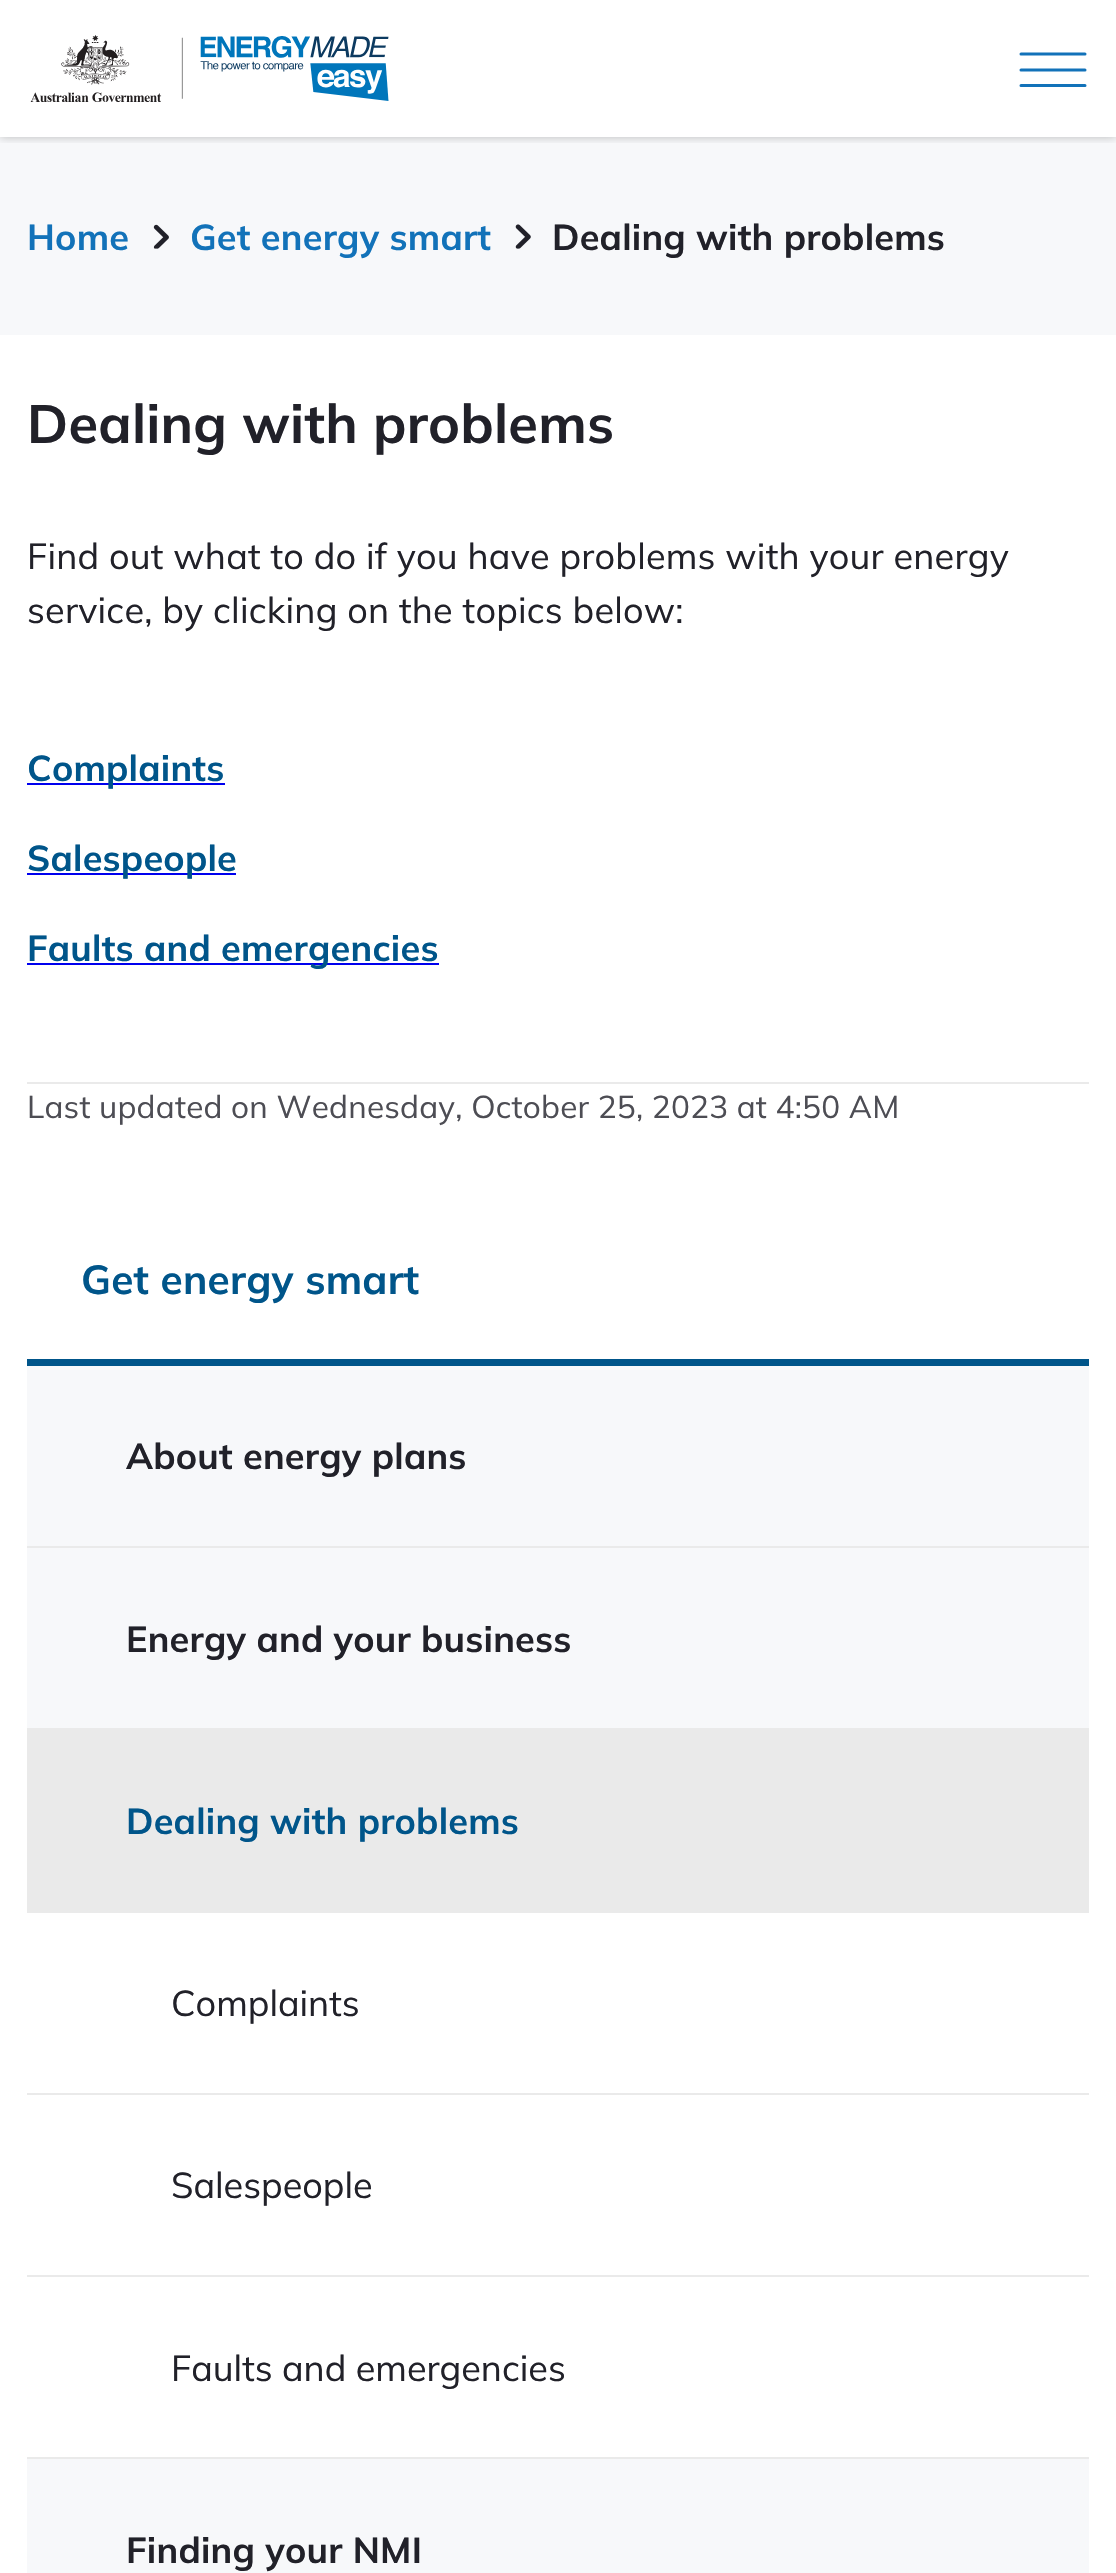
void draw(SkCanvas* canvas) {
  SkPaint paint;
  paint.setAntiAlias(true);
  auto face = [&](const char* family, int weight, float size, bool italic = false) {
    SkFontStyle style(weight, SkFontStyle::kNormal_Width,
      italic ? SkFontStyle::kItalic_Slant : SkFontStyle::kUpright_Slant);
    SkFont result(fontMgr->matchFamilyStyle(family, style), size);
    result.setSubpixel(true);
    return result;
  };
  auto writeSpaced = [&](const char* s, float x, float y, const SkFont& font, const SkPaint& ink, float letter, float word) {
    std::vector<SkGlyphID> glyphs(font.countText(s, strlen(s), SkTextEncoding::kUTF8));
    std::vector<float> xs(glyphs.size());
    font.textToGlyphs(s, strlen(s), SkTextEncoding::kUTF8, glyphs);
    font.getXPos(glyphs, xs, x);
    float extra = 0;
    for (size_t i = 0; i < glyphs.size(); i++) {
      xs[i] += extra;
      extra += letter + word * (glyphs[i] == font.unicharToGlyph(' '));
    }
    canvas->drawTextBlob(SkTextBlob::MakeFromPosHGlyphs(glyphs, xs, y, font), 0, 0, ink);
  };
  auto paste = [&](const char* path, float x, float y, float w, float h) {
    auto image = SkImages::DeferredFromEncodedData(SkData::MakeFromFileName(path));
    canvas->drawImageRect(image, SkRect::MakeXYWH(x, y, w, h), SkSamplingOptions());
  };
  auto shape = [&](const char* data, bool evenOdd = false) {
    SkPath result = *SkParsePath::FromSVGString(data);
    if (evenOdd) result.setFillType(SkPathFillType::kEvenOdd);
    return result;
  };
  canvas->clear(0xffffffff);
  paint.setColor(0xfff7f8fa);
  canvas->drawRect(SkRect::MakeXYWH(0, 137, 1116, 198), paint);
  canvas->save();
  canvas->clipRect(SkRect::MakeXYWH(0, 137, 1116, 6));
  paint.setColor(0x40000000);
  paint.setMaskFilter(SkMaskFilter::MakeBlur(kNormal_SkBlurStyle, 4.5f));
  canvas->drawRect(SkRect::MakeXYWH(0, 0, 1116, 137), paint);
  paint.setMaskFilter(nullptr);
  canvas->restore();
  paste("img/1.png", 30, 35, 359, 68);
  paint.setStroke(true);
  paint.setStrokeWidth(3);
  paint.setStrokeCap(SkPaint::kRound_Cap);
  paint.setColor(0xff1272b9);
  canvas->drawPath(shape("M1021 54H1085M1021 85.5H1085M1021 70H1085"), paint);
  paste("img/2.png", 153, 224, 16, 25);
  paste("img/3.png", 515, 224, 16, 25);
  paint.setStroke(false);
  {
    const struct { float x, y, w, h; SkColor color; } items[] = {
      {27, 783, 198, 2, 0xff0000ee},
      {27, 873, 209, 2, 0xff0000ee},
      {27, 963, 412, 2, 0xff0000ee},
      {27, 1082, 1062, 2, 0xffeaeaea},
      {27, 1359, 1062, 7, 0xff00558a},
      {27, 1366, 1062, 180, 0xfff7f8fa},
      {27, 1546, 1062, 2, 0xffeaeaea},
      {27, 1548, 1062, 180, 0xfff7f8fa},
      {27, 1728, 1062, 185, 0xffeaeaea},
      {27, 2093, 1062, 2, 0xffeaeaea},
      {27, 2275, 1062, 2, 0xffeaeaea},
      {27, 2457, 1062, 2, 0xffeaeaea},
      {27, 2459, 1062, 114, 0xfff7f8fa},
    };
    for (auto [x, y, w, h, color] : items) {
      paint.setColor(color);
      canvas->drawRect(SkRect::MakeXYWH(x, y, w, h), paint);
    }
  }
  auto f0 = face("Mulish", 700, 36);
  paint.setColor(0xff1272b9);
  writeSpaced("Home", 27, 250, f0, paint, 0.23f, 0);
  writeSpaced("Get energy smart", 190, 250, f0, paint, 0.23f, 0);
  paint.setColor(0xff212129);
  writeSpaced("Dealing with problems", 552, 250, f0, paint, 0.23f, 0);
  auto f1 = face("Mulish", 700, 54);
  writeSpaced("Dealing with problems", 27, 443, f1, paint, 0.23f, 0);
  auto f2 = face("Mulish", 400, 36);
  writeSpaced("Find out what to do if you have problems with your energy", 27, 569, f2, paint, 0.23f, 0);
  writeSpaced("service, by clicking on the topics below:", 27, 623, f2, paint, 0.23f, 0);
  paint.setColor(0xff00558a);
  {
    const struct { const char* s; float x, y; } items[] = {
      {"Complaints", 27, 781},
      {"Salespeople", 27, 871},
      {"Faults and emergencies", 27, 961},
    };
    for (auto [s, x, y] : items) {
      writeSpaced(s, x, y, f0, paint, 0.23f, 0);
    }
  }
  auto f3 = face("Mulish", 400, 31.5f);
  paint.setColor(0xff4d4d54);
  writeSpaced("Last updated on Wednesday, October 25, 2023 at 4:50 AM", 27, 1118, f3, paint, 0.23f, 0);
  auto f4 = face("Mulish", 700, 40.5f);
  paint.setColor(0xff00558a);
  writeSpaced("Get energy smart", 81, 1294, f4, paint, 0.23f, 0);
  paint.setColor(0xff212129);
  writeSpaced("About energy plans", 126, 1469, f0, paint, 0.23f, 0);
  writeSpaced("Energy and your business", 126, 1652, f0, paint, 0.23f, 0);
  paint.setColor(0xff00558a);
  writeSpaced("Dealing with problems", 126, 1834, f0, paint, 0.23f, 0);
  paint.setColor(0xff212129);
  {
    const struct { const char* s; float x, y; } items[] = {
      {"Complaints", 171, 2016},
      {"Salespeople", 171, 2198},
      {"Faults and emergencies", 171, 2381},
    };
    for (auto [s, x, y] : items) {
      canvas->drawString(s, x, y, f2, paint);
    }
  }
  writeSpaced("Finding your NMI", 126, 2563, f0, paint, 0.23f, 0);
}
